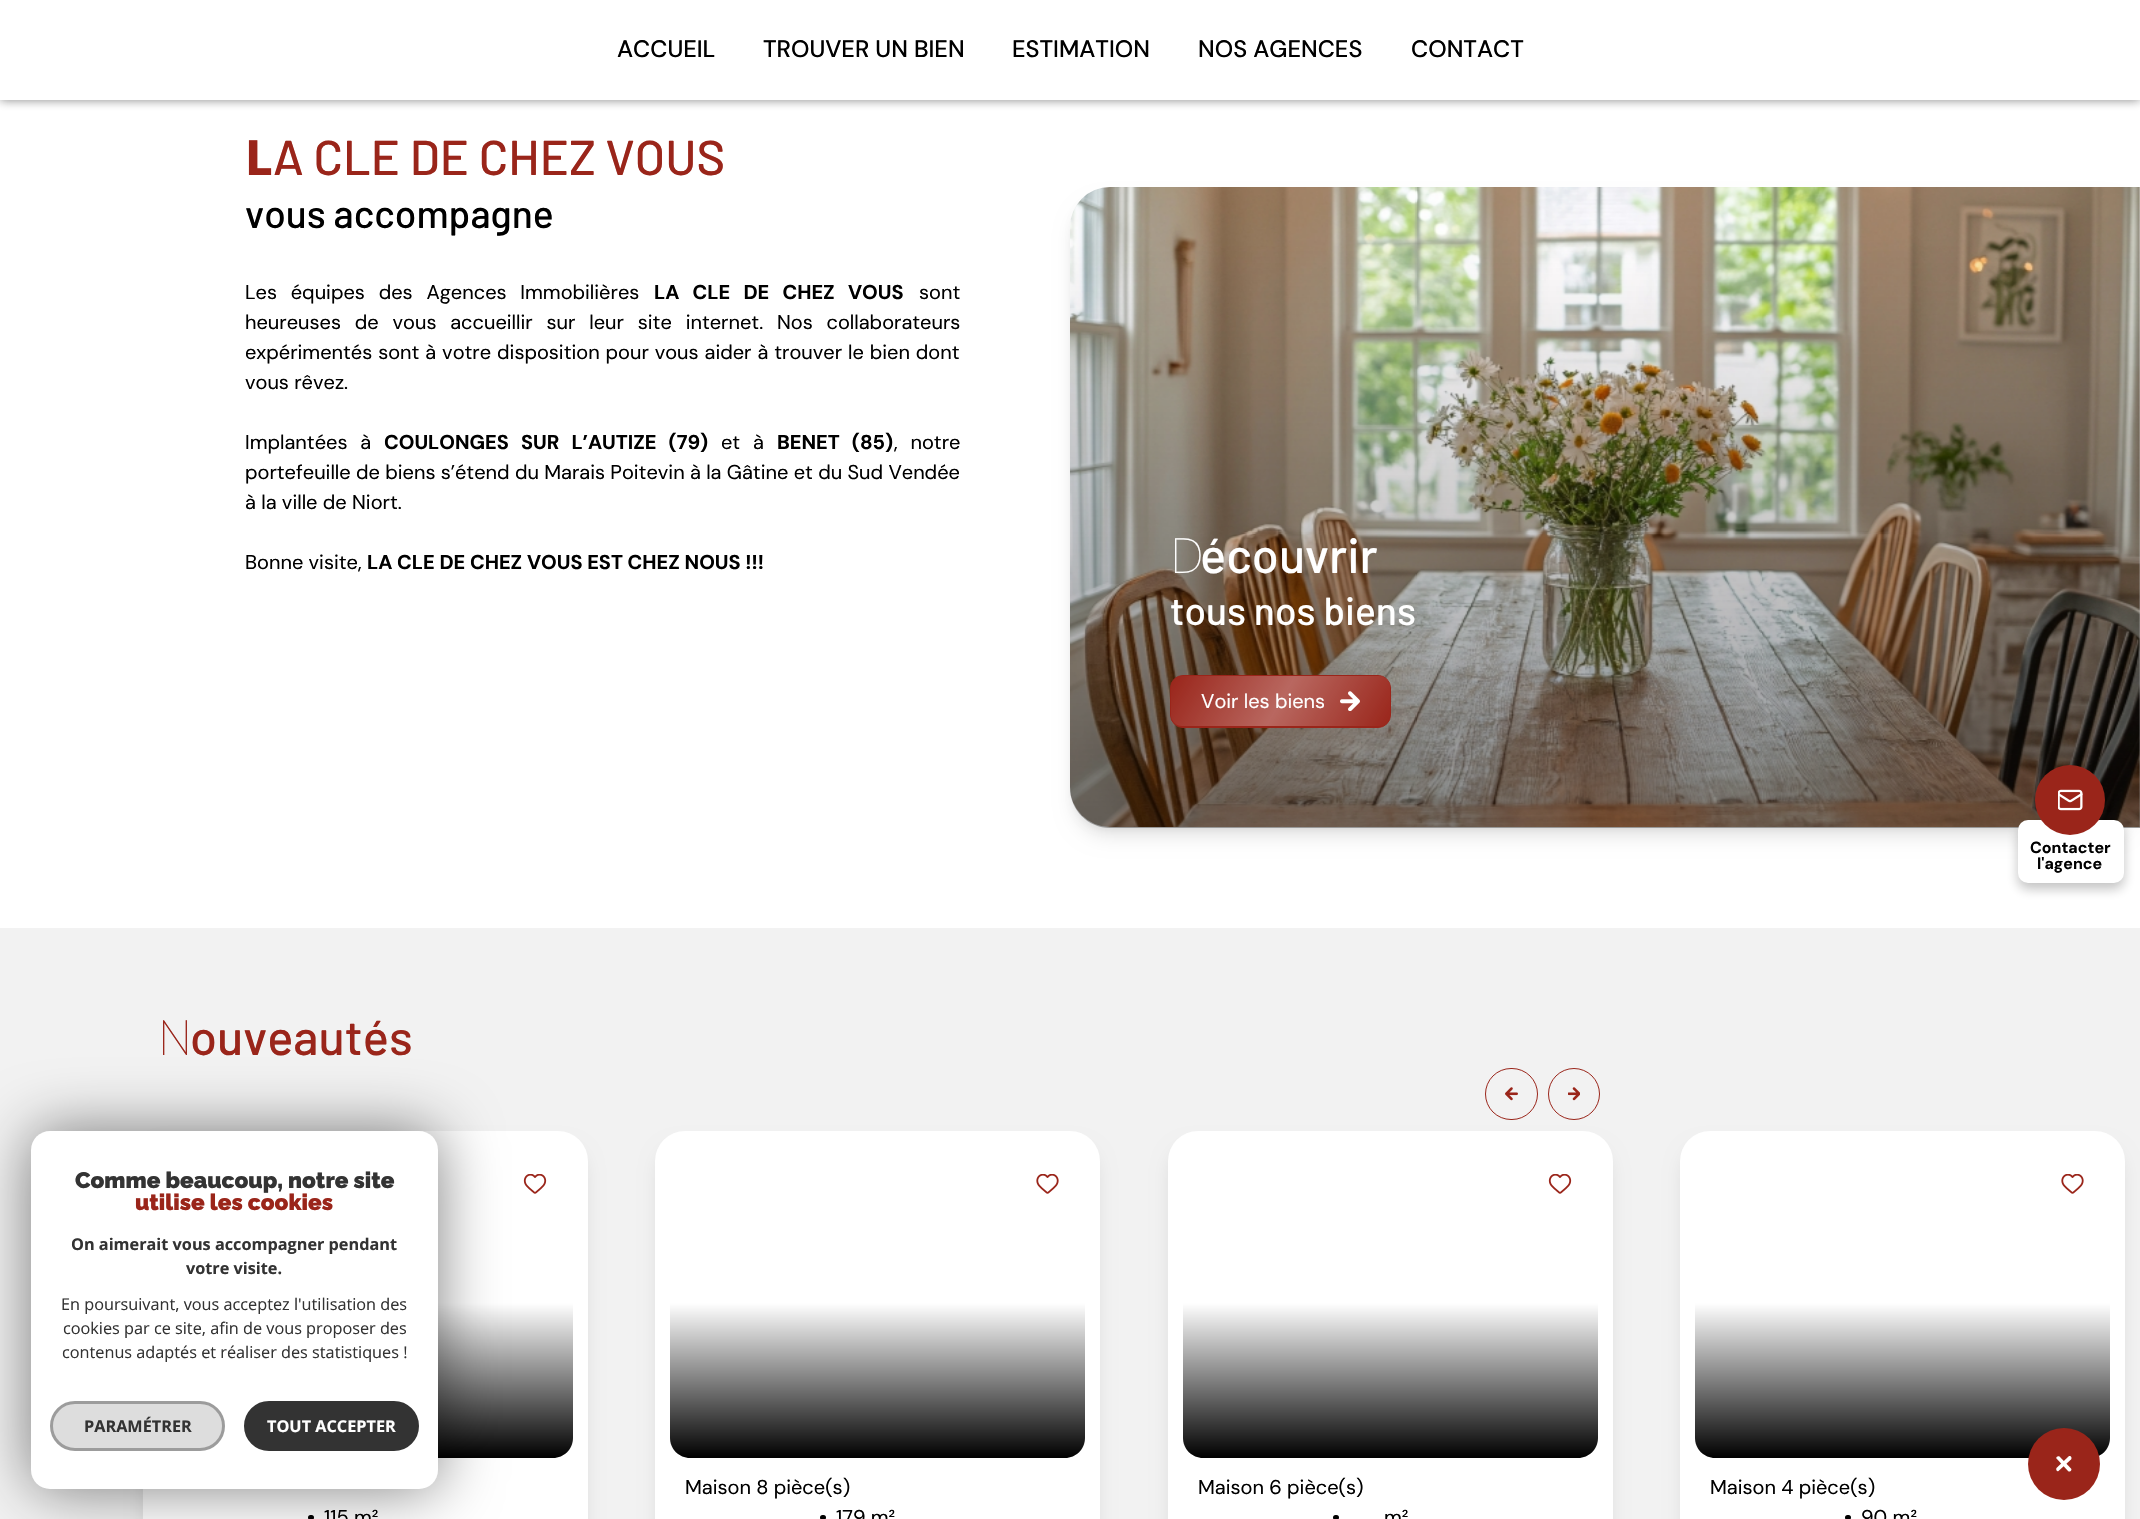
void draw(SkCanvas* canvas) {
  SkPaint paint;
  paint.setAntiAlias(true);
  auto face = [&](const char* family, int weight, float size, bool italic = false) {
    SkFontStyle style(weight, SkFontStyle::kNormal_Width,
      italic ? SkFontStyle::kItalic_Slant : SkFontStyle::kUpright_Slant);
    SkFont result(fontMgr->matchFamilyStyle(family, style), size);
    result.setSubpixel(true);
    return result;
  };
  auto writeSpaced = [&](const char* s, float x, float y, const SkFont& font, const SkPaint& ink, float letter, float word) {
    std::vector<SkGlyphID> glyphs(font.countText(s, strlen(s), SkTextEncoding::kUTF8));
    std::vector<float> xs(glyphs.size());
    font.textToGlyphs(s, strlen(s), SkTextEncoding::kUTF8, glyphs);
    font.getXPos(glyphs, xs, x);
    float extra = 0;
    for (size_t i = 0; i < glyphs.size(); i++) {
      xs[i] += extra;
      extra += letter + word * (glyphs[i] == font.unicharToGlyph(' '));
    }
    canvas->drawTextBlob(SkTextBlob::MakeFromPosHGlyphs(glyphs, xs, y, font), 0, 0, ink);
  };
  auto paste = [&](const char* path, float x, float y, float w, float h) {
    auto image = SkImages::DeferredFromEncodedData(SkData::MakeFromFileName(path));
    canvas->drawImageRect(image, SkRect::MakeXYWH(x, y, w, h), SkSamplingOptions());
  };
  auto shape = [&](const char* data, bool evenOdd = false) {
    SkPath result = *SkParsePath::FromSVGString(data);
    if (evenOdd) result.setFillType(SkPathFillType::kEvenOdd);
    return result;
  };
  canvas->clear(0xffffffff);
  paint.setColor(0x800a0a0a);
  paint.setMaskFilter(SkMaskFilter::MakeBlur(kNormal_SkBlurStyle, 5));
  canvas->drawRect(SkRect::MakeXYWH(0, 0, 2140, 100), paint);
  paint.setMaskFilter(nullptr);
  paint.setColor(0xffffffff);
  canvas->drawRect(SkRect::MakeXYWH(0, 0, 2140, 100), paint);
  paste("img/1.png", 1070, 187, 1070, 640);
  canvas->save();
  canvas->clipPath(shape("M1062 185H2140V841H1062ZM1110 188H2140V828H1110C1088 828 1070 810 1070 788V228C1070 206 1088 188 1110 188Z", true), true);
  paint.setColor(0x1a000000);
  paint.setMaskFilter(SkMaskFilter::MakeBlur(kNormal_SkBlurStyle, 4));
  canvas->drawRoundRect(SkRect::MakeXYWH(1075, 198, 1060, 630), 35, 35, paint);
  paint.setMaskFilter(nullptr);
  canvas->restore();
  canvas->save();
  canvas->clipPath(shape("M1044 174H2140V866H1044ZM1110 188H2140V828H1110C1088 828 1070 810 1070 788V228C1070 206 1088 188 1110 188Z", true), true);
  paint.setMaskFilter(SkMaskFilter::MakeBlur(kNormal_SkBlurStyle, 9.5f));
  canvas->drawRoundRect(SkRect::MakeXYWH(1074, 204, 1062, 632), 36, 36, paint);
  paint.setMaskFilter(nullptr);
  canvas->restore();
  {
    const SkColor colors[] = {0x00000000, 0x70000000};
    const float stops[] = {0, 1};
    const SkPoint ends[] = {{1605, 237}, {1605, 878}};
    paint.setShader(SkGradientShader::MakeLinear(ends, colors, stops, 2, SkTileMode::kClamp));
    paint.setAlpha(255);
  }
  canvas->drawPath(shape("M1070 238H2140V828H1110C1088 828 1070 810 1070 788Z"), paint);
  paint.setShader(nullptr);
  paint.setColor(0xff9a251a);
  canvas->drawRoundRect(SkRect::MakeXYWH(1170.5f, 675.5f, 220, 52), 12.5f, 12.5f, paint);
  paint.setStroke(true);
  paint.setStrokeWidth(1);
  canvas->drawRoundRect(SkRect::MakeXYWH(1170.5f, 675.5f, 220, 52), 12.5f, 12.5f, paint);
  paste("img/2.png", 1340, 691, 20, 20);
  paint.setStroke(false);
  paint.setColor(0x400a0a0a);
  paint.setMaskFilter(SkMaskFilter::MakeBlur(kNormal_SkBlurStyle, 6));
  canvas->drawRoundRect(SkRect::MakeXYWH(2018, 826, 106, 63), 10, 10, paint);
  paint.setMaskFilter(nullptr);
  paint.setColor(0xffffffff);
  canvas->drawRoundRect(SkRect::MakeXYWH(2018, 820, 106, 63), 10, 10, paint);
  paint.setColor(0xff9a251a);
  canvas->drawCircle(2070, 800, 35, paint);
  paste("img/3.png", 2058, 789, 25, 22);
  paint.setColor(0xfff2f2f2);
  canvas->drawRect(SkRect::MakeXYWH(0, 928, 2140, 591), paint);
  paint.setColor(0x1a000000);
  paint.setMaskFilter(SkMaskFilter::MakeBlur(kNormal_SkBlurStyle, 9.5f));
  canvas->drawRoundRect(SkRect::MakeXYWH(1684, 1148, 437, 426), 26, 26, paint);
  paint.setMaskFilter(nullptr);
  paint.setColor(0xffffffff);
  canvas->drawRoundRect(SkRect::MakeXYWH(1680, 1131, 445, 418), 30, 30, paint);
  {
    const SkColor colors[] = {0xffffffff, 0xff000000};
    const float stops[] = {0, 1};
    const SkPoint ends[] = {{1903, 1303}, {1903, 1458}};
    paint.setShader(SkGradientShader::MakeLinear(ends, colors, stops, 2, SkTileMode::kClamp));
    paint.setAlpha(255);
  }
  canvas->drawPath(shape("M1695 1303H2110V1438C2110 1449 2101 1458 2090 1458H1715C1704 1458 1695 1449 1695 1438Z"), paint);
  paint.setShader(nullptr);
  paint.setColor(0xff9a251a);
  canvas->drawCircle(2064, 1464, 36, paint);
  paint.setColor(0xffffffff);
  canvas->drawPath(shape("M2071 1459.5L2058.5 1471C2057 1472 2055.5 1469.5 2056.5 1468L2068.5 1456.5C2070.5 1455 2072.5 1458 2071 1459.5Z"), paint);
  canvas->drawPath(shape("M2068 1471L2056.5 1458.5C2055.5 1457 2058 1455.5 2059.5 1456.5L2071 1468.5C2072.5 1470.5 2069.5 1472.5 2068 1471Z"), paint);
  paint.setStroke(true);
  paint.setColor(0xff9a251a);
  canvas->drawRoundRect(SkRect::MakeXYWH(1485.5f, 1068.5f, 52, 51), 25.5f, 25.5f, paint);
  paste("img/4.png", 1505, 1087, 13, 14);
  canvas->drawCircle(1574, 1094, 25.5f, paint);
  paste("img/5.png", 1568, 1087, 12, 14);
  paint.setStroke(false);
  paint.setColor(0x1a000000);
  paint.setMaskFilter(SkMaskFilter::MakeBlur(kNormal_SkBlurStyle, 9.5f));
  canvas->drawRoundRect(SkRect::MakeXYWH(146, 1148, 438, 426), 26, 26, paint);
  paint.setMaskFilter(nullptr);
  paint.setColor(0xffffffff);
  canvas->drawRoundRect(SkRect::MakeXYWH(143, 1131, 445, 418), 30, 30, paint);
  paste("img/6.png", 523, 1174, 24, 20);
  {
    const SkColor colors[] = {0xffffffff, 0xff000000};
    const float stops[] = {0, 1};
    const SkPoint ends[] = {{365, 1303}, {365, 1458}};
    paint.setShader(SkGradientShader::MakeLinear(ends, colors, stops, 2, SkTileMode::kClamp));
    paint.setAlpha(255);
  }
  canvas->drawPath(shape("M158 1303H573V1438C573 1449 564 1458 553 1458H178C167 1458 158 1449 158 1438Z"), paint);
  paint.setShader(nullptr);
  paint.setColor(0xff000000);
  canvas->drawRoundRect(SkRect::MakeXYWH(308, 1515, 6, 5), 2.5f, 2.5f, paint);
  paint.setColor(0x1a000000);
  paint.setMaskFilter(SkMaskFilter::MakeBlur(kNormal_SkBlurStyle, 9.5f));
  canvas->drawRoundRect(SkRect::MakeXYWH(659, 1148, 437, 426), 26, 26, paint);
  paint.setMaskFilter(nullptr);
  paint.setColor(0xffffffff);
  canvas->drawRoundRect(SkRect::MakeXYWH(655, 1131, 445, 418), 30, 30, paint);
  paste("img/7.png", 1036, 1174, 23, 20);
  {
    const SkColor colors[] = {0xffffffff, 0xff000000};
    const float stops[] = {0, 1};
    const SkPoint ends[] = {{878, 1303}, {878, 1458}};
    paint.setShader(SkGradientShader::MakeLinear(ends, colors, stops, 2, SkTileMode::kClamp));
    paint.setAlpha(255);
  }
  canvas->drawPath(shape("M670 1303H1085V1438C1085 1449 1076 1458 1065 1458H690C679 1458 670 1449 670 1438Z"), paint);
  paint.setShader(nullptr);
  paint.setColor(0xff000000);
  canvas->drawRoundRect(SkRect::MakeXYWH(820, 1515, 6, 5), 2.5f, 2.5f, paint);
  paint.setColor(0x1a000000);
  paint.setMaskFilter(SkMaskFilter::MakeBlur(kNormal_SkBlurStyle, 9.5f));
  canvas->drawRoundRect(SkRect::MakeXYWH(1171, 1148, 438, 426), 26, 26, paint);
  paint.setMaskFilter(nullptr);
  paint.setColor(0xffffffff);
  canvas->drawRoundRect(SkRect::MakeXYWH(1168, 1131, 445, 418), 30, 30, paint);
  paste("img/6.png", 1548, 1174, 24, 20);
  {
    const SkColor colors[] = {0xffffffff, 0xff000000};
    const float stops[] = {0, 1};
    const SkPoint ends[] = {{1390, 1303}, {1390, 1458}};
    paint.setShader(SkGradientShader::MakeLinear(ends, colors, stops, 2, SkTileMode::kClamp));
    paint.setAlpha(255);
  }
  canvas->drawPath(shape("M1183 1303H1598V1438C1598 1449 1589 1458 1578 1458H1203C1192 1458 1183 1449 1183 1438Z"), paint);
  paint.setShader(nullptr);
  paint.setColor(0xff000000);
  canvas->drawRoundRect(SkRect::MakeXYWH(1333, 1515, 6, 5), 2.5f, 2.5f, paint);
  paste("img/7.png", 2061, 1174, 23, 20);
  canvas->drawRoundRect(SkRect::MakeXYWH(1845, 1515, 6, 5), 2.5f, 2.5f, paint);
  paint.setColor(0x80000000);
  paint.setMaskFilter(SkMaskFilter::MakeBlur(kNormal_SkBlurStyle, 31));
  canvas->drawRoundRect(SkRect::MakeXYWH(31, 1131, 407, 358), 19, 19, paint);
  paint.setMaskFilter(nullptr);
  paint.setColor(0xffffffff);
  canvas->drawRoundRect(SkRect::MakeXYWH(31, 1131, 407, 358), 19, 19, paint);
  paint.setColor(0xffdddddd);
  canvas->drawRoundRect(SkRect::MakeXYWH(51.5f, 1402.5f, 172, 47), 23.5f, 23.5f, paint);
  paint.setStroke(true);
  paint.setStrokeWidth(3);
  paint.setColor(0xff9c9c9c);
  canvas->drawRoundRect(SkRect::MakeXYWH(51.5f, 1402.5f, 172, 47), 23.5f, 23.5f, paint);
  paint.setStroke(false);
  paint.setColor(0xff333333);
  canvas->drawRoundRect(SkRect::MakeXYWH(245.5f, 1402.5f, 172, 47), 23.5f, 23.5f, paint);
  paint.setStroke(true);
  canvas->drawRoundRect(SkRect::MakeXYWH(245.5f, 1402.5f, 172, 47), 23.5f, 23.5f, paint);
  auto f0 = face("DM Sans", 500, 23.75f);
  paint.setStroke(false);
  paint.setColor(0xff000000);
  {
    const struct { const char* s; float x, y; } items[] = {
      {"ACCUEIL", 617, 57},
      {"TROUVER UN BIEN", 763, 57},
      {"ESTIMATION", 1012, 57},
      {"NOS AGENCES", 1198, 57},
      {"CONTACT", 1411, 57},
    };
    for (auto [s, x, y] : items) {
      canvas->drawString(s, x, y, f0, paint);
    }
  }
  auto f1 = face("Noto Sans", 800, 48.75f);
  paint.setColor(0xff9a251a);
  canvas->drawString("L", 245, 175, f1, paint);
  auto f2 = face("Barlow", 500, 48.75f);
  canvas->drawString("A CLE DE CHEZ VOUS", 273, 175, f2, paint);
  auto f3 = face("Barlow", 500, 39);
  paint.setColor(0xff000000);
  canvas->drawString("vous accompagne", 245, 228, f3, paint);
  auto f4 = face("DM Sans", 400, 20);
  writeSpaced("Les équipes des Agences Immobilières", 245, 299, f4, paint, 0, 8.5f);
  auto f5 = face("DM Sans", 700, 20);
  writeSpaced("LA CLE DE CHEZ VOUS", 654, 299, f5, paint, 0, 8.5f);
  canvas->drawString("sont", 919, 299, f4, paint);
  writeSpaced("heureuses de vous accueillir sur leur site internet. Nos collaborateurs", 245, 329, f4, paint, 0, 8.5f);
  writeSpaced("expérimentés sont à votre disposition pour vous aider à trouver le bien dont", 245, 359, f4, paint, 0, 0.6f);
  canvas->drawString("vous rêvez.", 245, 389, f4, paint);
  writeSpaced("Implantées à", 245, 449, f4, paint, 0, 7.5f);
  writeSpaced("COULONGES SUR L’AUTIZE (79)", 384, 449, f5, paint, 0, 7.5f);
  writeSpaced("et à", 721, 449, f4, paint, 0, 7.5f);
  writeSpaced("BENET (85)", 777, 449, f5, paint, 0, 7.5f);
  writeSpaced(", notre", 894, 449, f4, paint, 0, 7.5f);
  {
    const struct { const char* s; float x, y; } items[] = {
      {"portefeuille de biens s’étend du Marais Poitevin à la Gâtine et du Sud Vendée", 245, 479},
      {"à la ville de Niort.", 245, 509},
      {"Bonne visite,", 245, 569},
    };
    for (auto [s, x, y] : items) {
      canvas->drawString(s, x, y, f4, paint);
    }
  }
  canvas->drawString("LA CLE DE CHEZ VOUS EST CHEZ NOUS !!!", 367, 569, f5, paint);
  auto f6 = face("Noto Sans", 100, 48.75f);
  paint.setColor(0xffffffff);
  canvas->drawString("D", 1170, 573, f6, paint);
  canvas->drawString("écouvrir", 1200, 573, f2, paint);
  canvas->drawString("tous nos biens", 1170, 625, f3, paint);
  canvas->drawString("Voir les biens", 1201, 708, f4, paint);
  {
    const SkColor colors[] = {0x00ffffff, 0x4dffffff, 0x00ffffff};
    const float stops[] = {0, 0.5f, 1};
    const SkPoint ends[] = {{1188, 648}, {1373, 755}};
    paint.setShader(SkGradientShader::MakeLinear(ends, colors, stops, 3, SkTileMode::kClamp));
    paint.setAlpha(255);
  }
  canvas->drawRoundRect(SkRect::MakeXYWH(1171, 676, 219, 50), 11, 11, paint);
  auto f7 = face("DM Sans", 700, 16);
  paint.setShader(nullptr);
  paint.setColor(0xff000000);
  canvas->drawString("Contacter", 2030, 853, f7, paint);
  canvas->drawString("l'agence", 2037, 869, f7, paint);
  paint.setColor(0xff9a251a);
  canvas->drawString("N", 158, 1055, f6, paint);
  canvas->drawString("ouveautés", 190, 1055, f2, paint);
  paint.setColor(0xff000000);
  {
    const struct { const char* s; float x, y; } items[] = {
      {"115 m²", 324, 1524},
      {"Maison 8 pièce(s)", 685, 1494},
      {"179 m²", 836, 1524},
      {"Maison 6 pièce(s)", 1198, 1494},
      {"m²", 1384, 1524},
      {"Maison 4 pièce(s)", 1710, 1494},
      {"90 m²", 1861, 1524},
    };
    for (auto [s, x, y] : items) {
      canvas->drawString(s, x, y, f4, paint);
    }
  }
  auto f8 = face("Raleway", 100, 22.5f);
  paint.setColor(0xff333333);
  canvas->drawString("Comme beaucoup, notre site", 75, 1188, f8, paint);
  paint.setColor(0xff9a251a);
  canvas->drawString("utilise les cookies", 135, 1210, f8, paint);
  auto f9 = face("Open Sans", 700, 16.25f);
  paint.setColor(0xff333333);
  canvas->drawString("On aimerait vous accompagner pendant", 71, 1250, f9, paint);
  canvas->drawString("votre visite.", 186, 1274, f9, paint);
  auto f10 = face("Open Sans", 400, 16.25f);
  {
    const struct { const char* s; float x, y; } items[] = {
      {"En poursuivant, vous acceptez l'utilisation des", 61, 1310},
      {"cookies par ce site, afin de vous proposer des", 63, 1334},
      {"contenus adaptés et réaliser des statistiques !", 62, 1358},
    };
    for (auto [s, x, y] : items) {
      canvas->drawString(s, x, y, f10, paint);
    }
  }
  canvas->drawString("PARAMÉTRER", 84, 1432, f9, paint);
  paint.setColor(0xffffffff);
  canvas->drawString("TOUT ACCEPTER", 267, 1432, f9, paint);
}
